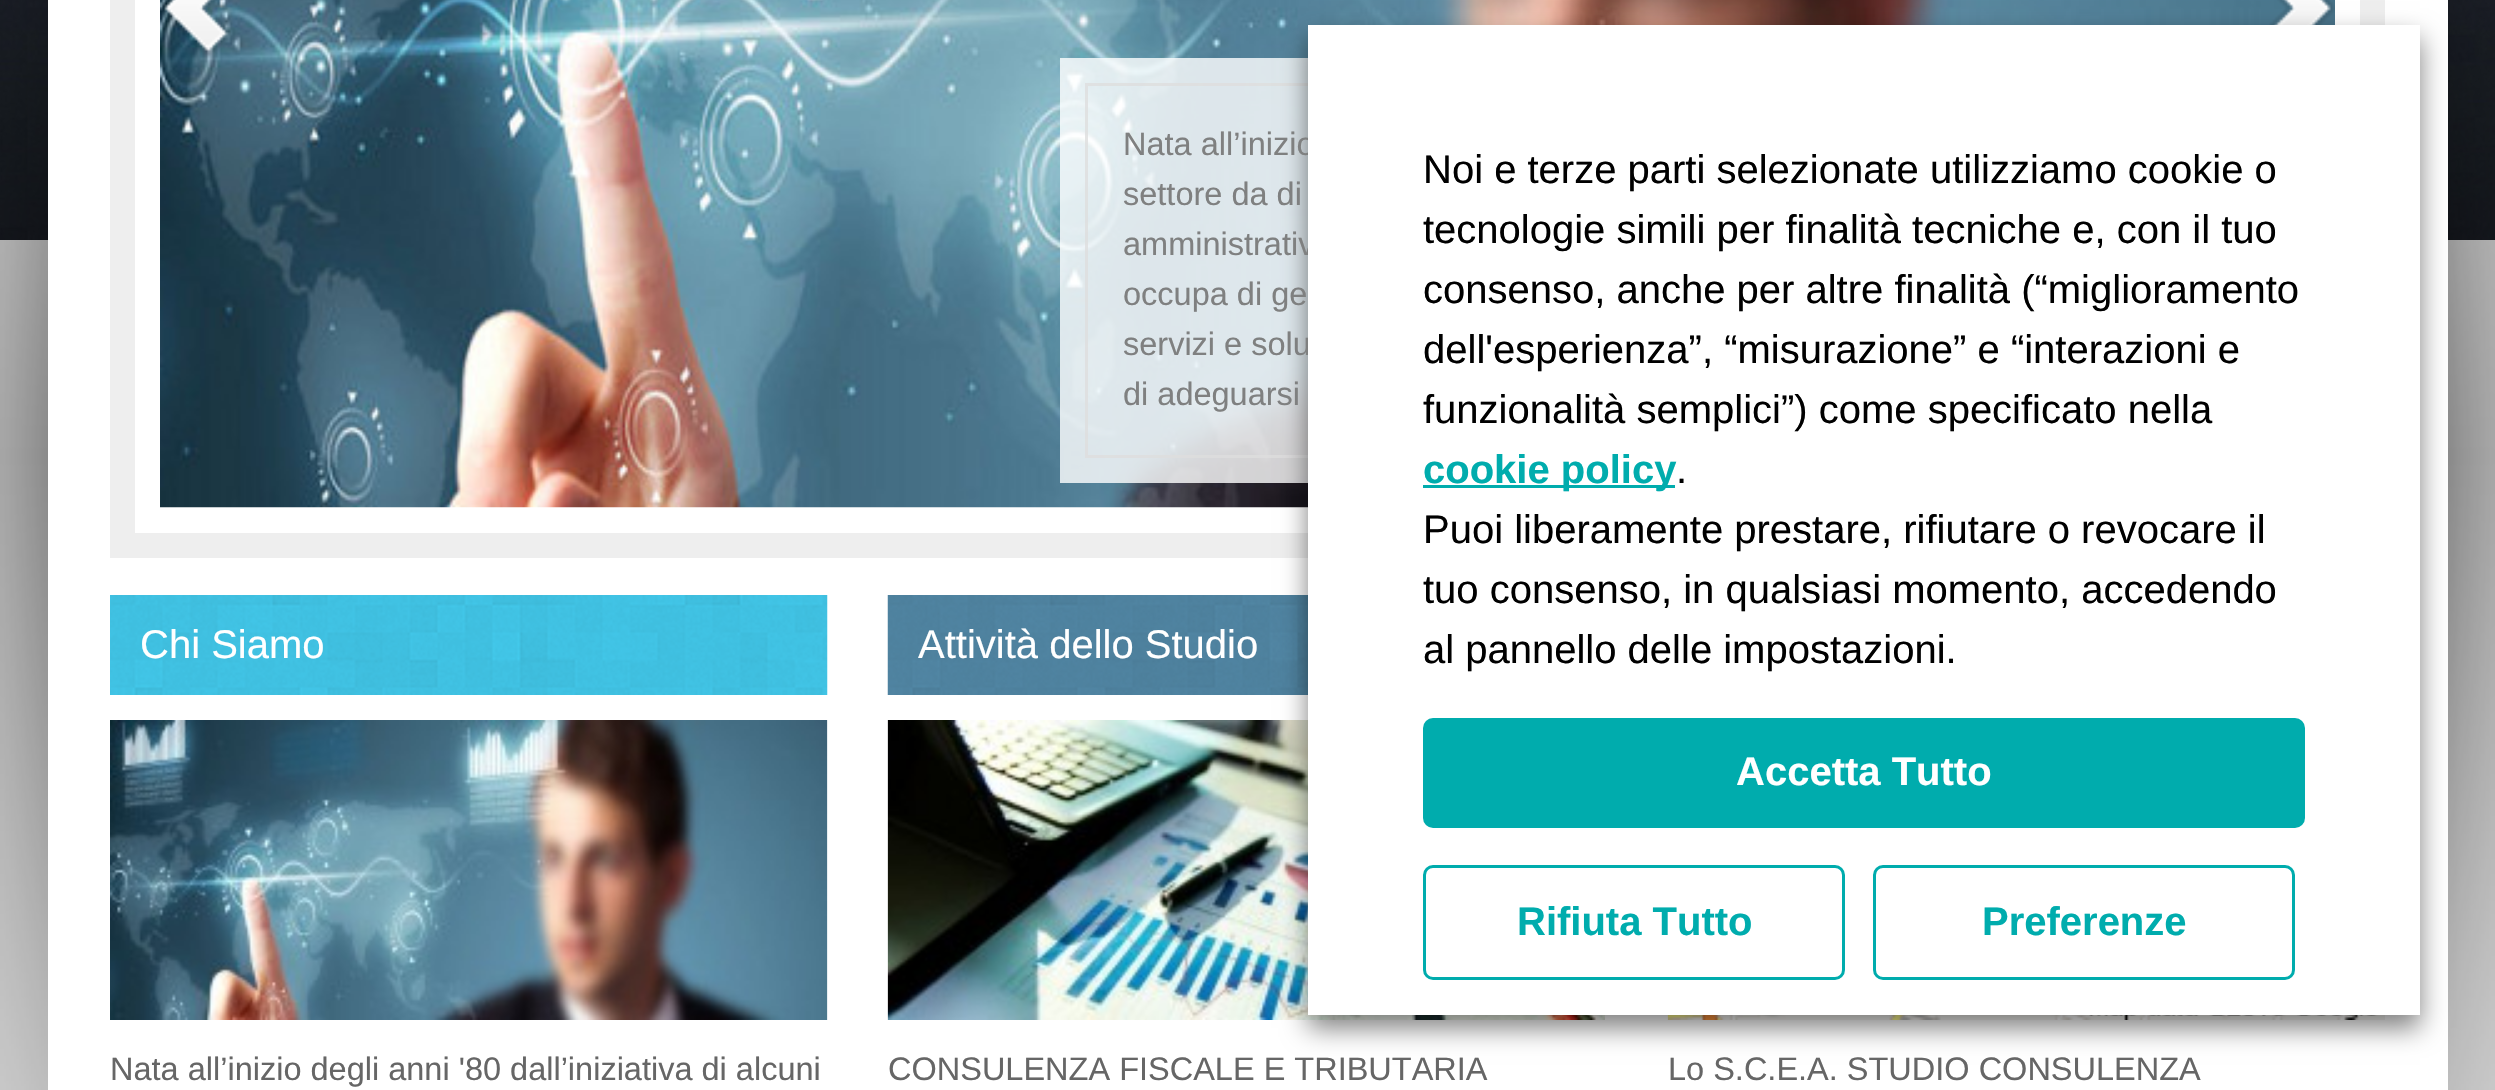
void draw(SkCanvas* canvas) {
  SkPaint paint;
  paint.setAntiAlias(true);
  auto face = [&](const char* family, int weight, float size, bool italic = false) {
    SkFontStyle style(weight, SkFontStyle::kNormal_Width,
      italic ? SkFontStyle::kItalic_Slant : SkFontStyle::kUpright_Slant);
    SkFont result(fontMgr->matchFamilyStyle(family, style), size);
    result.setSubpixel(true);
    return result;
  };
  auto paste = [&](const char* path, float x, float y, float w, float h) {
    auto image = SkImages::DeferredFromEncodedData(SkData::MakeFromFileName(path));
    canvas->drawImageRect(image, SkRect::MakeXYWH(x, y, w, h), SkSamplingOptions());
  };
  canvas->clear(0xffdddddd);
  paste("img/1.png", 0, 0, 2495, 240);
  paste("img/2.png", 0, 0, 2495, 1090);
  paint.setColor(0xffffffff);
  canvas->drawRect(SkRect::MakeXYWH(48, 0, 2400, 1090), paint);
  paint.setStroke(true);
  paint.setStrokeWidth(25);
  paint.setColor(0xffeeeeee);
  canvas->drawRect(SkRect::MakeXYWH(122.5f, -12.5f, 2250, 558), paint);
  paste("img/5.png", 160, 0, 2175, 508);
  paste("img/3.png", 160, 0, 71, 56);
  paste("img/4.png", 2269, 0, 66, 25);
  paint.setStroke(false);
  paint.setColor(0xccffffff);
  canvas->drawRect(SkRect::MakeXYWH(1060, 58, 248, 425), paint);
  paint.setStroke(true);
  paint.setStrokeWidth(3);
  paint.setColor(0xccdddddd);
  canvas->drawRect(SkRect::MakeXYWH(1086.5f, 84.5f, 1197, 372), paint);
  paste("img/6.png", 110, 595, 718, 100);
  paste("img/7.png", 110, 720, 718, 300);
  paste("img/8.png", 887, 595, 421, 100);
  paste("img/9.png", 887, 720, 718, 300);
  paste("img/10.png", 1667, 1015, 718, 5);
  paint.setStroke(false);
  paint.setColor(0x80000000);
  paint.setMaskFilter(SkMaskFilter::MakeBlur(kNormal_SkBlurStyle, 12.5f));
  canvas->drawRect(SkRect::MakeXYWH(1308, 38, 1112, 990), paint);
  paint.setMaskFilter(nullptr);
  auto f0 = face("Liberation Sans", 400, 32.5f);
  paint.setColor(0xff7f8080);
  {
    const struct { const char* s; float x, y; } items[] = {
      {"Nata all’inizio", 1123, 155},
      {"settore da di", 1123, 205},
      {"amministrativ", 1123, 255},
      {"occupa di ge", 1123, 305},
      {"servizi e solu", 1123, 355},
      {"di adeguarsi", 1123, 405},
    };
    for (auto [s, x, y] : items) {
      canvas->drawString(s, x, y, f0, paint);
    }
  }
  auto f1 = face("Liberation Sans", 400, 40);
  paint.setColor(0xffffffff);
  canvas->drawString("Chi Siamo", 140, 658, f1, paint);
  paint.setColor(0xff666666);
  canvas->drawString("Nata all’inizio degli anni '80 dall’iniziativa di alcuni", 110, 1080, f0, paint);
  paint.setColor(0xffffffff);
  canvas->drawString("Attività dello Studio", 918, 658, f1, paint);
  paint.setColor(0xff666666);
  canvas->drawString("CONSULENZA FISCALE E TRIBUTARIA", 888, 1080, f0, paint);
  canvas->drawString("Lo S.C.E.A. STUDIO CONSULENZA", 1668, 1080, f0, paint);
  paint.setColor(0xffffffff);
  canvas->drawRect(SkRect::MakeXYWH(1308, 25, 1112, 990), paint);
  paint.setColor(0xff000000);
  {
    const struct { const char* s; float x, y; } items[] = {
      {"Noi e terze parti selezionate utilizziamo cookie o", 1423, 183},
      {"tecnologie simili per finalità tecniche e, con il tuo", 1423, 243},
      {"consenso, anche per altre finalità (“miglioramento", 1423, 303},
      {"dell'esperienza”, “misurazione” e “interazioni e", 1423, 363},
      {"funzionalità semplici”) come specificato nella", 1423, 423},
    };
    for (auto [s, x, y] : items) {
      canvas->drawString(s, x, y, f1, paint);
    }
  }
  paint.setColor(0xff00acad);
  canvas->drawRect(SkRect::MakeXYWH(1423, 485, 252, 3), paint);
  auto f2 = face("Liberation Sans", 700, 40);
  canvas->drawString("cookie policy", 1423, 483, f2, paint);
  paint.setColor(0xff000000);
  {
    const struct { const char* s; float x, y; } items[] = {
      {".", 1676, 483},
      {"Puoi liberamente prestare, rifiutare o revocare il", 1423, 543},
      {"tuo consenso, in qualsiasi momento, accedendo", 1423, 603},
      {"al pannello delle impostazioni.", 1423, 663},
    };
    for (auto [s, x, y] : items) {
      canvas->drawString(s, x, y, f1, paint);
    }
  }
  paint.setColor(0xff00acad);
  canvas->drawRoundRect(SkRect::MakeXYWH(1423, 718, 882, 110), 10, 10, paint);
  paint.setColor(0xffffffff);
  canvas->drawString("Accetta Tutto", 1736, 785, f2, paint);
  paint.setStroke(true);
  paint.setColor(0xff00acad);
  canvas->drawRoundRect(SkRect::MakeXYWH(1424.5f, 866.5f, 419, 112), 8.5f, 8.5f, paint);
  paint.setStroke(false);
  canvas->drawString("Rifiuta Tutto", 1517, 935, f2, paint);
  paint.setStroke(true);
  canvas->drawRoundRect(SkRect::MakeXYWH(1874.5f, 866.5f, 419, 112), 8.5f, 8.5f, paint);
  paint.setStroke(false);
  canvas->drawString("Preferenze", 1982, 935, f2, paint);
}
